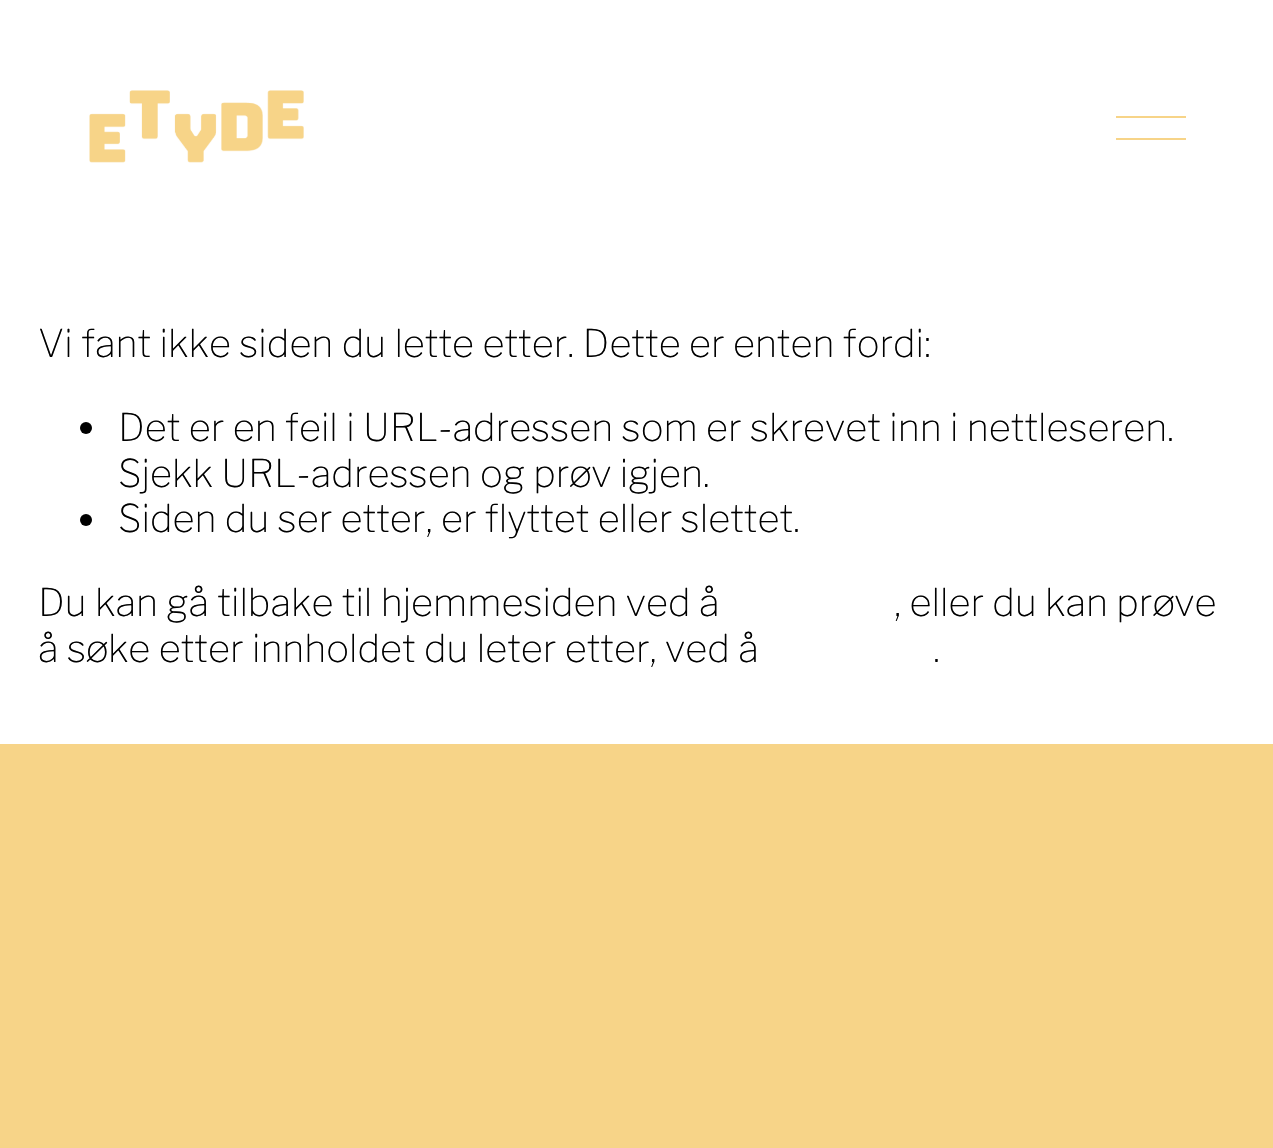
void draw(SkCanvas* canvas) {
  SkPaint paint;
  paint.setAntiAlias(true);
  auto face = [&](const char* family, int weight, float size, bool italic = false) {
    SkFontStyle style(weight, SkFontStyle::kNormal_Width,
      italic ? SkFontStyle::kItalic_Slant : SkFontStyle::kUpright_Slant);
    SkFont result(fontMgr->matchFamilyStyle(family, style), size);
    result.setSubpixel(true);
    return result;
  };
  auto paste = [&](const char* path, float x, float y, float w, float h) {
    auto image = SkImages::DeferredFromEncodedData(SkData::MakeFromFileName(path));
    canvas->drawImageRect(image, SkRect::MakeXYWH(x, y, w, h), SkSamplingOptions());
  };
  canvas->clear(0xffffffff);
  paste("img/1.png", 89, 90, 215, 73);
  paint.setColor(0xfff7d488);
  canvas->drawRect(SkRect::MakeXYWH(1116, 116, 70, 2), paint);
  canvas->drawRect(SkRect::MakeXYWH(1116, 138, 70, 2), paint);
  paint.setColor(0xff000000);
  canvas->drawCircle(86, 428, 6, paint);
  canvas->drawCircle(86, 520, 6, paint);
  paint.setColor(0xfff7d488);
  canvas->drawRect(SkRect::MakeXYWH(0, 744, 1273, 404), paint);
  auto f0 = face("Libre Franklin", 100, 38.1f);
  paint.setColor(0xff000000);
  {
    const struct { const char* s; float x, y; } items[] = {
      {"Vi fant ikke siden du lette etter. Dette er enten fordi:", 38, 357},
      {"Det er en feil i URL-adressen som er skrevet inn i nettleseren.", 118, 441},
      {"Sjekk URL-adressen og prøv igjen.", 118, 487},
      {"Siden du ser etter, er flyttet eller slettet.", 118, 532},
      {"Du kan gå tilbake til hjemmesiden ved å", 38, 616},
      {", eller du kan prøve", 894, 616},
      {"å søke etter innholdet du leter etter, ved å", 38, 662},
      {".", 933, 662},
    };
    for (auto [s, x, y] : items) {
      canvas->drawString(s, x, y, f0, paint);
    }
  }
}
